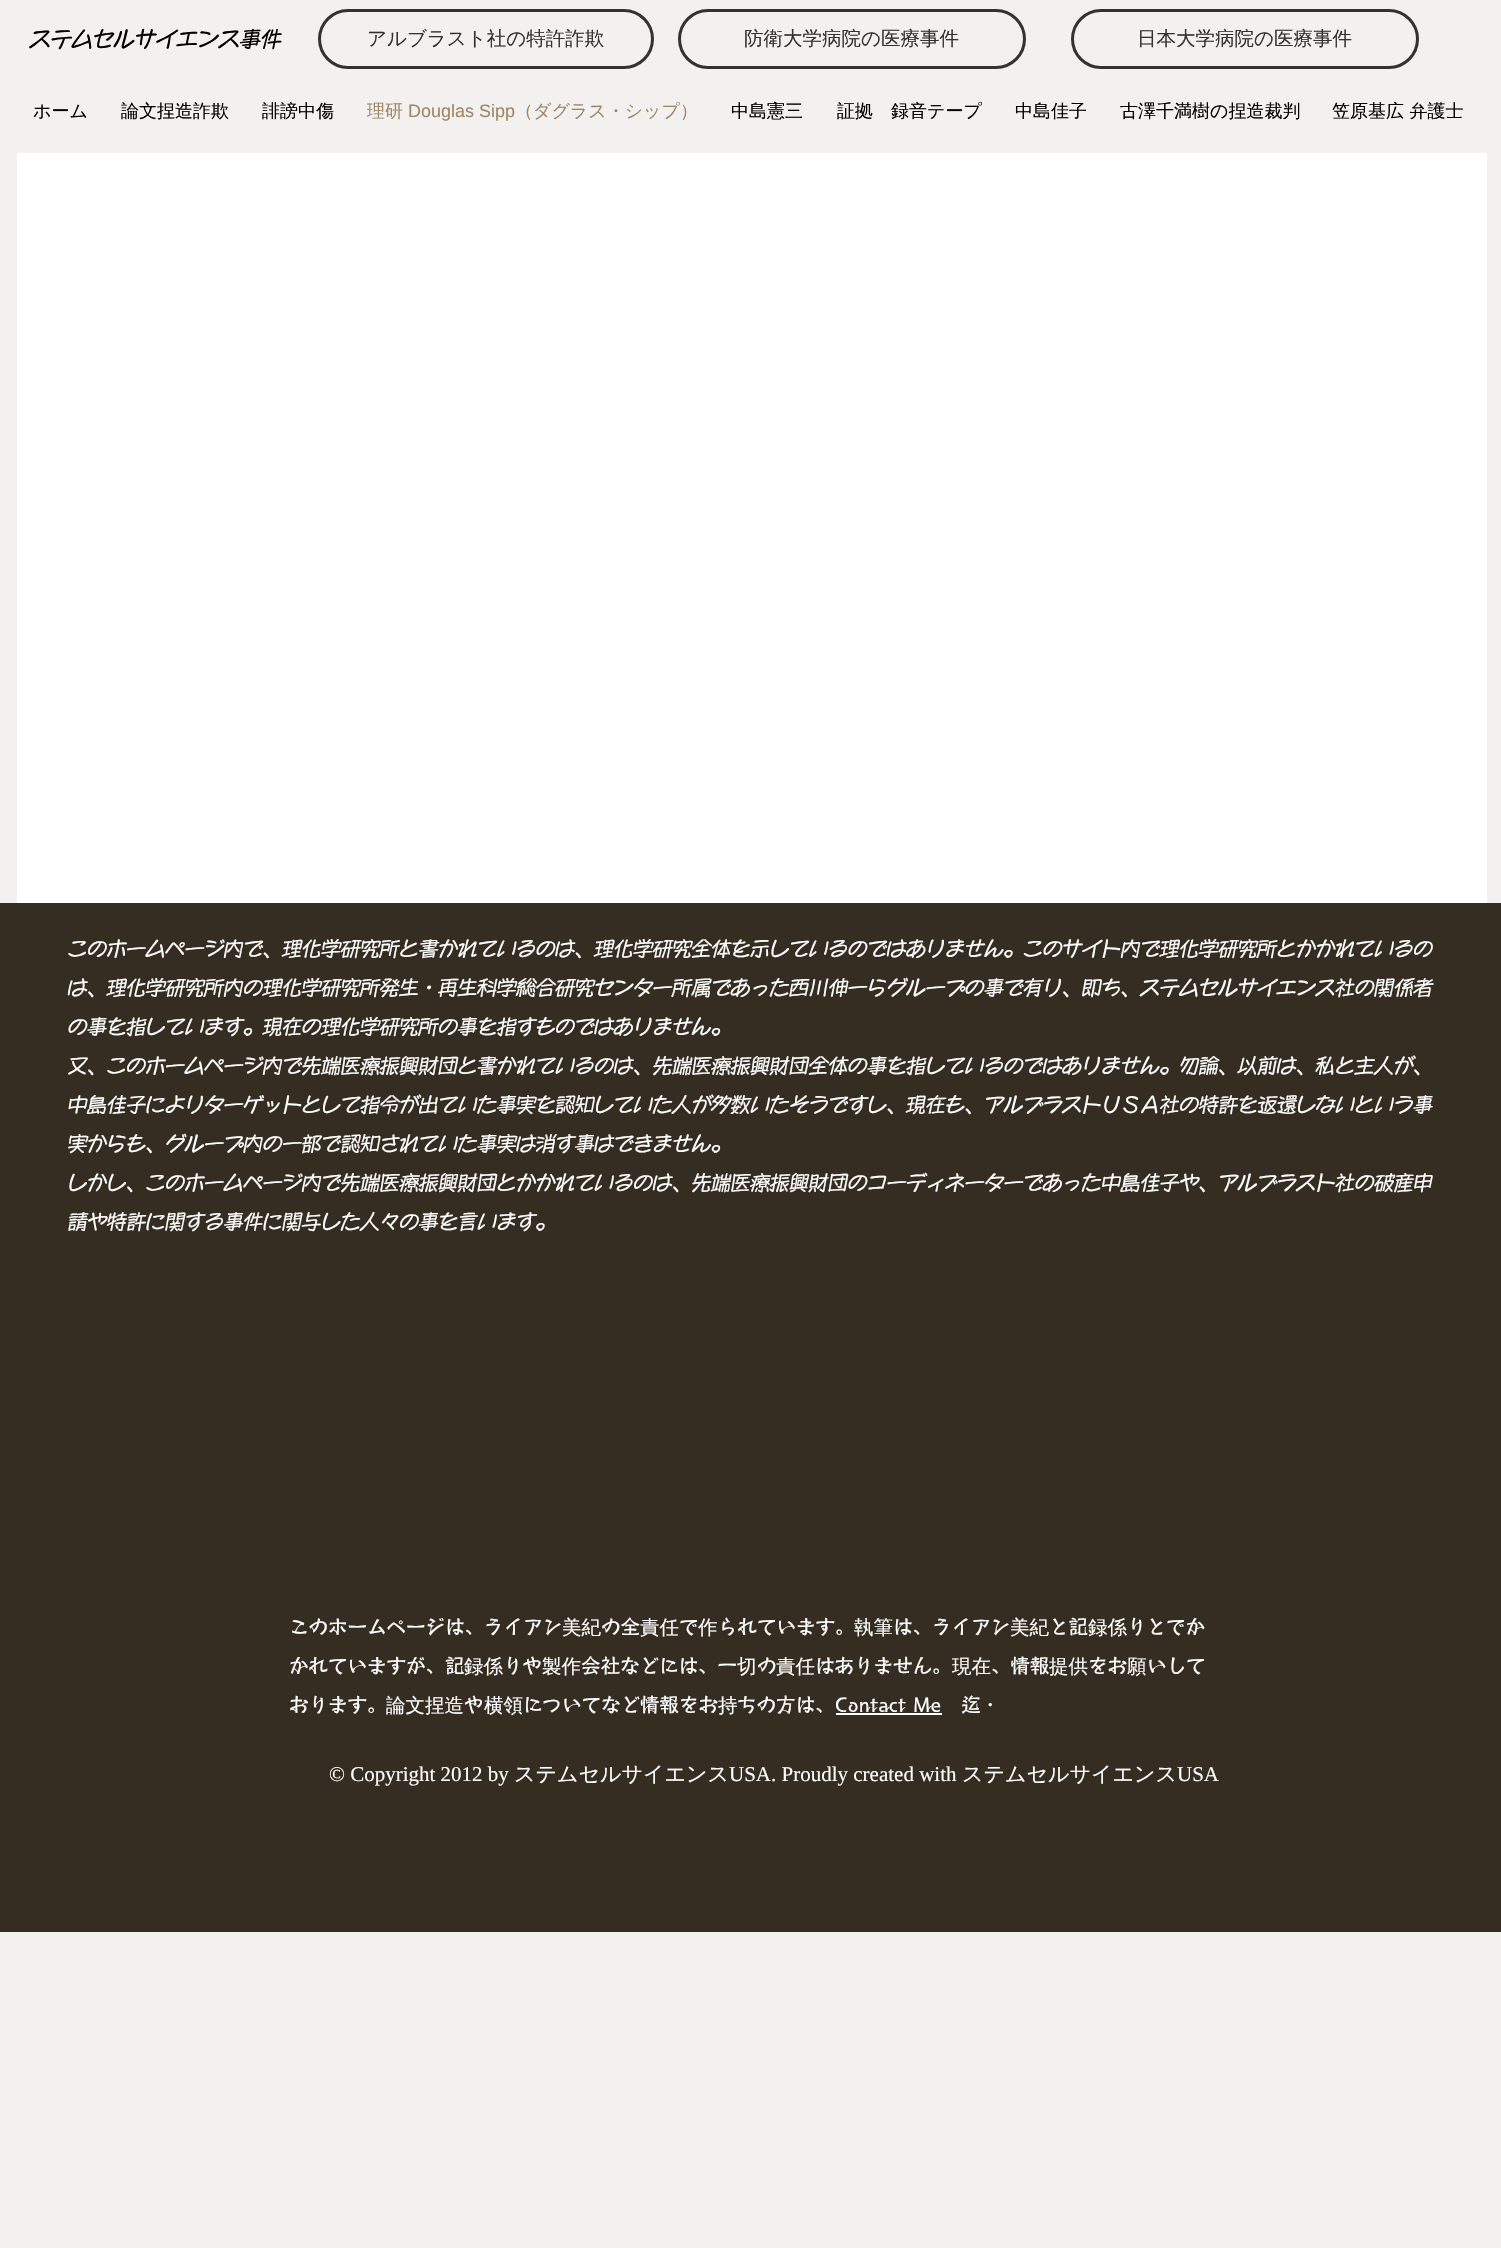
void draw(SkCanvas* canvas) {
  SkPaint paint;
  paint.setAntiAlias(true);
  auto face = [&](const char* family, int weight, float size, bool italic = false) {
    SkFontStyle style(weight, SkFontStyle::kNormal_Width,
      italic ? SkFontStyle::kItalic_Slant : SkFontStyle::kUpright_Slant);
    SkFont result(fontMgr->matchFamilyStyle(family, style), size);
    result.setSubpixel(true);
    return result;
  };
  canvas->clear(0xfff2f1f0);
  paint.setStroke(true);
  paint.setStrokeWidth(3);
  paint.setColor(0xff323232);
  canvas->drawRoundRect(SkRect::MakeXYWH(319.5f, 10.5f, 333, 57), 28.5f, 28.5f, paint);
  canvas->drawRoundRect(SkRect::MakeXYWH(679.5f, 10.5f, 345, 57), 28.5f, 28.5f, paint);
  canvas->drawRoundRect(SkRect::MakeXYWH(1072.5f, 10.5f, 345, 57), 28.5f, 28.5f, paint);
  paint.setStroke(false);
  {
    const struct { float x, y, w, h; SkColor color; } items[] = {
      {17, 153, 1470, 750, 0xffffffff},
      {0, 903, 1501, 1029, 0xff352d22},
      {836, 1713, 106, 2, 0xffffffff},
    };
    for (auto [x, y, w, h, color] : items) {
      paint.setColor(color);
      canvas->drawRect(SkRect::MakeXYWH(x, y, w, h), paint);
    }
  }
  auto f0 = face("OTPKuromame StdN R", 400, 21);
  paint.setColor(0xff000000);
  canvas->drawString("ステムセルサイエンス事件", 30, 47, f0, paint);
  auto f1 = face("WenQuanYi Zen Hei", 500, 19.5f);
  paint.setColor(0xff323232);
  {
    const struct { const char* s; float x, y; } items[] = {
      {"アルブラスト社の特許詐欺", 367, 45},
      {"防衛大学病院の医療事件", 744, 45},
      {"日本大学病院の医療事件", 1137, 45},
    };
    for (auto [s, x, y] : items) {
      canvas->drawString(s, x, y, f1, paint);
    }
  }
  auto f2 = face("WenQuanYi Zen Hei", 500, 18);
  paint.setColor(0xff000000);
  {
    const struct { const char* s; float x, y; } items[] = {
      {"ホーム", 33, 117},
      {"論文捏造詐欺", 121, 117},
      {"誹謗中傷", 262, 117},
    };
    for (auto [s, x, y] : items) {
      canvas->drawString(s, x, y, f2, paint);
    }
  }
  paint.setColor(0xff9e8765);
  canvas->drawString("理研", 367, 117, f2, paint);
  auto f3 = face("Liberation Sans", 400, 18);
  canvas->drawString("Douglas Sipp", 408, 117, f3, paint);
  canvas->drawString("（ダグラス・シップ）", 515, 117, f2, paint);
  paint.setColor(0xff000000);
  {
    const struct { const char* s; float x, y; } items[] = {
      {"中島憲三", 731, 117},
      {"証拠　録音テープ", 837, 117},
      {"中島佳子", 1015, 117},
      {"古澤千満樹の捏造裁判", 1120, 117},
      {"笠原基広 弁護士", 1332, 117},
    };
    for (auto [s, x, y] : items) {
      canvas->drawString(s, x, y, f2, paint);
    }
  }
  auto f4 = face("OTPKuromame StdN R", 400, 19.5f);
  paint.setColor(0xffffffff);
  {
    const struct { const char* s; float x, y; } items[] = {
      {"このホームページ内で、理化学研究所と書かれているのは、理化学研究全体を示しているのではありません。このサイト内で理化学研究所とかかれているの", 68, 956},
      {"は、理化学研究所内の理化学研究所発生・再生科学総合研究センター所属であった西川伸一らグループの事で有り、即ち、ステムセルサイエンス社の関係者", 68, 995},
      {"の事を指しています。現在の理化学研究所の事を指すものではありません。", 68, 1034},
      {"又、このホームページ内で先端医療振興財団と書かれているのは、先端医療振興財団全体の事を指しているのではありません。勿論、以前は、私と主人が、", 68, 1073},
      {"中島佳子によりターゲットとして指令が出ていた事実を認知していた人が多数いたそうですし、現在も、アルブラストＵＳＡ社の特許を返還しないという事", 68, 1112},
      {"実からも、グループ内の一部で認知されていた事実は消す事はできません。", 68, 1151},
      {"しかし、このホームページ内で先端医療振興財団とかかれているのは、先端医療振興財団のコーディネーターであった中島佳子や、アルブラスト社の破産申", 68, 1190},
      {"請や特許に関する事件に関与した人々の事を言います。", 68, 1229},
    };
    for (auto [s, x, y] : items) {
      canvas->drawString(s, x, y, f4, paint);
    }
  }
  auto f5 = face("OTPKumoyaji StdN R", 400, 19.5f);
  canvas->drawString("このホームページは、ライアン", 289, 1634, f5, paint);
  canvas->drawString("美紀", 562, 1634, f1, paint);
  canvas->drawString("の全", 601, 1634, f5, paint);
  canvas->drawString("責任", 640, 1634, f1, paint);
  canvas->drawString("で", 679, 1634, f5, paint);
  canvas->drawString("作", 698, 1634, f1, paint);
  canvas->drawString("られています。", 718, 1634, f5, paint);
  canvas->drawString("執筆", 854, 1634, f1, paint);
  canvas->drawString("は、ライアン", 893, 1634, f5, paint);
  canvas->drawString("美紀", 1010, 1634, f1, paint);
  canvas->drawString("と記", 1049, 1634, f5, paint);
  canvas->drawString("録係", 1088, 1634, f1, paint);
  canvas->drawString("りとでか", 1127, 1634, f5, paint);
  canvas->drawString("かれていますが、記", 289, 1673, f5, paint);
  canvas->drawString("録係", 464, 1673, f1, paint);
  canvas->drawString("りや", 503, 1673, f5, paint);
  canvas->drawString("製作", 542, 1673, f1, paint);
  canvas->drawString("会社などには、一", 581, 1673, f5, paint);
  canvas->drawString("切", 737, 1673, f1, paint);
  canvas->drawString("の", 757, 1673, f5, paint);
  canvas->drawString("責任", 776, 1673, f1, paint);
  canvas->drawString("はありません。", 815, 1673, f5, paint);
  canvas->drawString("現在", 952, 1673, f1, paint);
  canvas->drawString("、情報", 991, 1673, f5, paint);
  canvas->drawString("提供", 1049, 1673, f1, paint);
  canvas->drawString("をお", 1088, 1673, f5, paint);
  canvas->drawString("願", 1127, 1673, f1, paint);
  canvas->drawString("いして", 1147, 1673, f5, paint);
  canvas->drawString("おります。", 289, 1712, f5, paint);
  canvas->drawString("論文捏造", 386, 1712, f1, paint);
  canvas->drawString("や", 464, 1712, f5, paint);
  canvas->drawString("横領", 484, 1712, f1, paint);
  canvas->drawString("についてなど情報をお", 523, 1712, f5, paint);
  canvas->drawString("持", 718, 1712, f1, paint);
  canvas->drawString("ちの方は、Contact Me", 737, 1712, f5, paint);
  canvas->drawString("迄・", 961, 1712, f5, paint);
  auto f6 = face("Liberation Serif", 400, 21);
  canvas->drawString("© Copyright 2012 by", 329, 1781, f6, paint);
  auto f7 = face("WenQuanYi Zen Hei", 500, 21);
  canvas->drawString("ステムセルサイエンス", 514, 1781, f7, paint);
  canvas->drawString("USA. Proudly created with", 729, 1781, f6, paint);
  canvas->drawString("ステムセルサイエンス", 962, 1781, f7, paint);
  canvas->drawString("USA", 1177, 1781, f6, paint);
}
